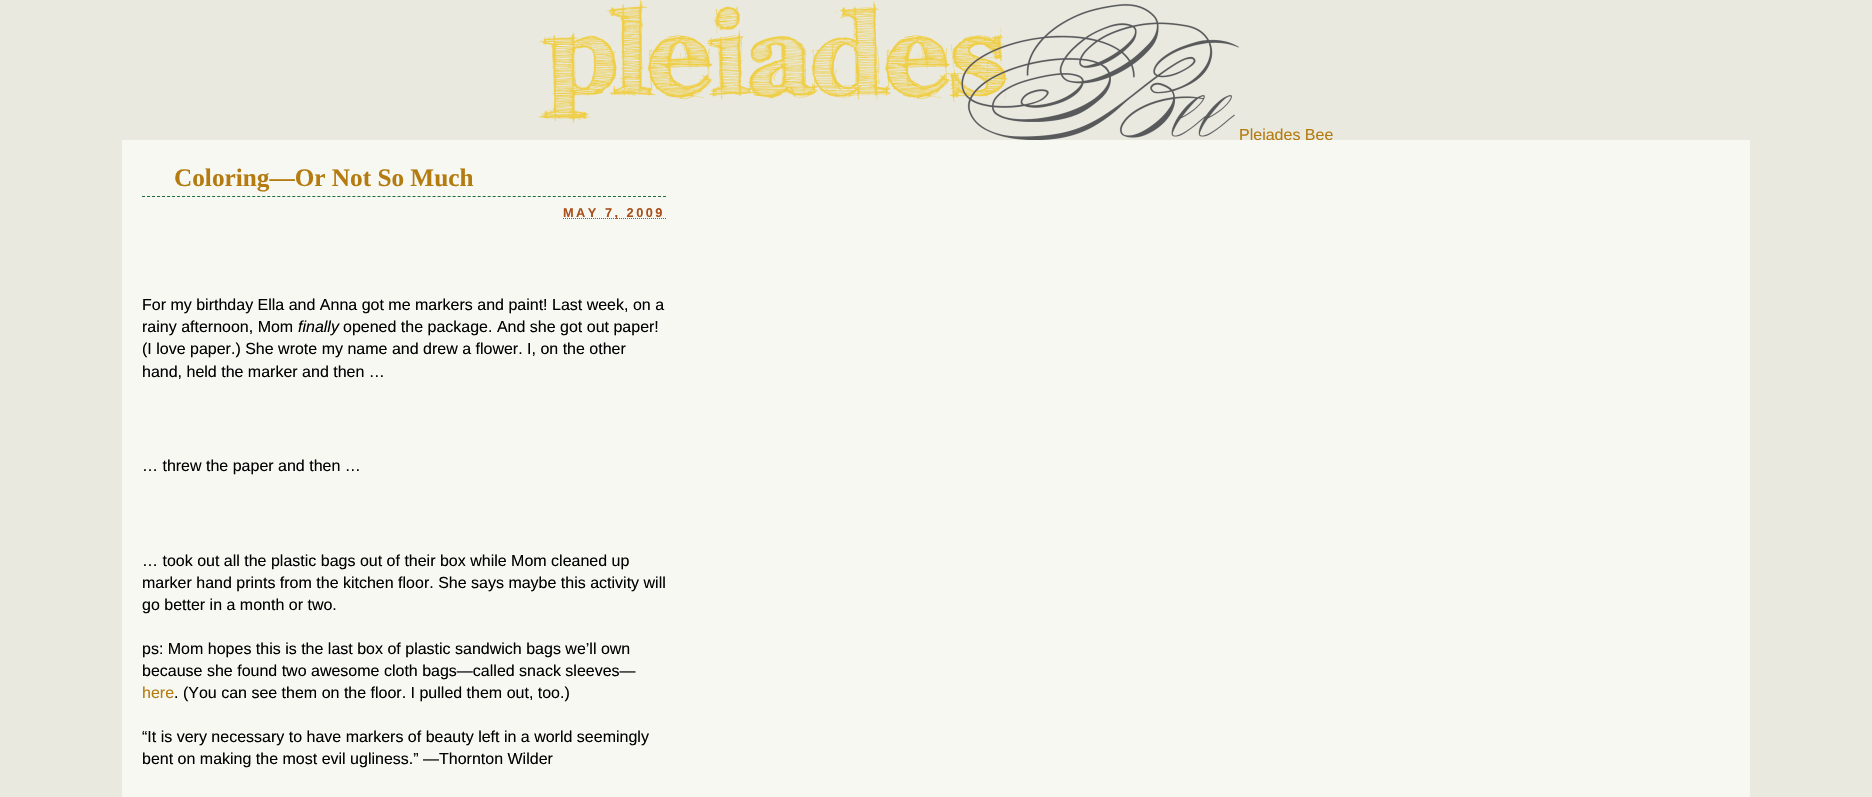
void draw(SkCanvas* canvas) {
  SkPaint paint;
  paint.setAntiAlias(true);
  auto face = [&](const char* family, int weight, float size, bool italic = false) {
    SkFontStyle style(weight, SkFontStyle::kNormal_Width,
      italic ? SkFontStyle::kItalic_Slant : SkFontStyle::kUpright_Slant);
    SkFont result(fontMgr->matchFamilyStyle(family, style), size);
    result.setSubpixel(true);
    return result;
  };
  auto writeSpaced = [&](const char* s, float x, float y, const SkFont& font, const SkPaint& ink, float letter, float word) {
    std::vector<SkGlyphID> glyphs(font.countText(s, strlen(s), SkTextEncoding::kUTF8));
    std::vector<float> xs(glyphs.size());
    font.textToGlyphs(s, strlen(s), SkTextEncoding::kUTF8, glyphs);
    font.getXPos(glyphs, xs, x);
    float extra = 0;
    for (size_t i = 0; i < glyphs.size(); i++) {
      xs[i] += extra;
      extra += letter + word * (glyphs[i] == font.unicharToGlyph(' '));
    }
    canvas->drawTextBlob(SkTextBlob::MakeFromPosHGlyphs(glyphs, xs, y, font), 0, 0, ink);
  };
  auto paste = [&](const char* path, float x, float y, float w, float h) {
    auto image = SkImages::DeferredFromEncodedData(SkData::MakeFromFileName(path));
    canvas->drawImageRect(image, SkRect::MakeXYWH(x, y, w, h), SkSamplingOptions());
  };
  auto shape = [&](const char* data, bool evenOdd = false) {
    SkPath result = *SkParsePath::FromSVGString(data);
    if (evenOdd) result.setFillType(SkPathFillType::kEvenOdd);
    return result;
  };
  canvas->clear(0xffe9e9df);
  paste("img/1.png", 539, 0, 700, 140);
  auto f0 = face("Liberation Sans", 400, 16);
  paint.setColor(0xffb47b10);
  canvas->drawString("Pleiades Bee", 1239, 140, f0, paint);
  paint.setColor(0xfff7f8f2);
  canvas->drawRect(SkRect::MakeXYWH(122, 140, 1628, 657), paint);
  paint.setStroke(true);
  paint.setStrokeWidth(1);
  paint.setColor(0xff1b703a);
  paint.setPathEffect(SkDashPathEffect::Make({{3, 2.01f}}, 0));
  canvas->drawPath(shape("M142 196.5H666"), paint);
  paint.setPathEffect(nullptr);
  auto f1 = face("Liberation Serif", 700, 25.25f);
  paint.setStroke(false);
  paint.setColor(0xffb47b10);
  canvas->drawString("Coloring—Or Not So Much", 174, 186, f1, paint);
  paint.setStroke(true);
  paint.setColor(0xffa9501b);
  paint.setPathEffect(SkDashPathEffect::Make({{1, 1}}, 0));
  canvas->drawPath(shape("M563 218.5H666"), paint);
  paint.setPathEffect(nullptr);
  auto f2 = face("Liberation Sans", 700, 12.75f);
  paint.setStroke(false);
  writeSpaced("MAY 7, 2009", 563, 217, f2, paint, 2.5f, 0);
  paint.setColor(0xff000000);
  canvas->drawString("For my birthday Ella and Anna got me markers and paint! Last week, on a", 142, 310, f0, paint);
  canvas->drawString("rainy afternoon, Mom", 142, 332, f0, paint);
  auto f3 = face("Liberation Sans", 400, 16, true);
  canvas->drawString("finally", 298, 332, f3, paint);
  {
    const struct { const char* s; float x, y; } items[] = {
      {"opened the package. And she got out paper!", 343, 332},
      {"(I love paper.) She wrote my name and drew a flower. I, on the other", 142, 354},
      {"hand, held the marker and then …", 142, 377},
      {"… threw the paper and then …", 142, 471},
      {"… took out all the plastic bags out of their box while Mom cleaned up", 142, 566},
      {"marker hand prints from the kitchen floor. She says maybe this activity will", 142, 588},
      {"go better in a month or two.", 142, 610},
      {"ps: Mom hopes this is the last box of plastic sandwich bags we’ll own", 142, 654},
      {"because she found two awesome cloth bags—called snack sleeves—", 142, 676},
    };
    for (auto [s, x, y] : items) {
      canvas->drawString(s, x, y, f0, paint);
    }
  }
  paint.setColor(0xffb47b10);
  canvas->drawString("here", 142, 698, f0, paint);
  paint.setColor(0xff000000);
  {
    const struct { const char* s; float x, y; } items[] = {
      {". (You can see them on the floor. I pulled them out, too.)", 174, 698},
      {"“It is very necessary to have markers of beauty left in a world seemingly", 142, 742},
      {"bent on making the most evil ugliness.” —Thornton Wilder", 142, 764},
    };
    for (auto [s, x, y] : items) {
      canvas->drawString(s, x, y, f0, paint);
    }
  }
}
